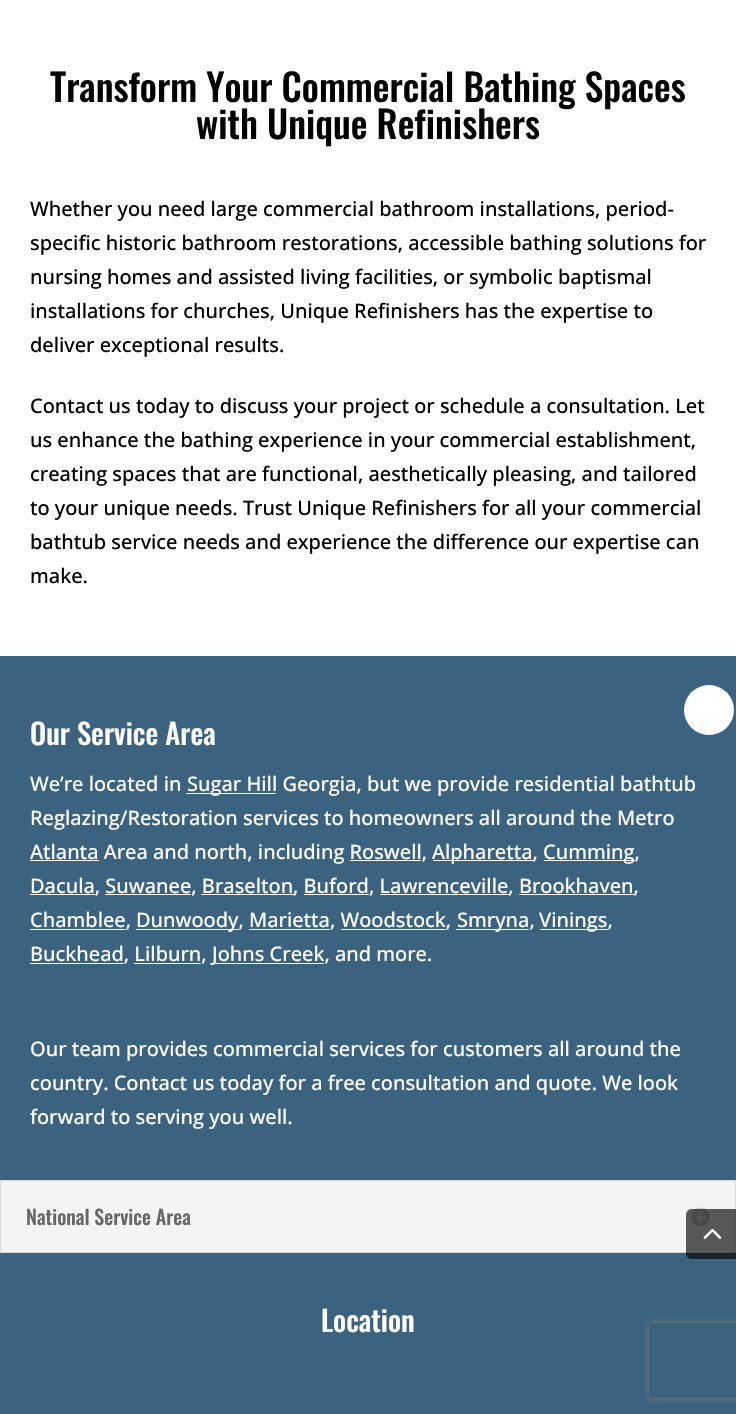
void draw(SkCanvas* canvas) {
  SkPaint paint;
  paint.setAntiAlias(true);
  auto face = [&](const char* family, int weight, float size, bool italic = false) {
    SkFontStyle style(weight, SkFontStyle::kNormal_Width,
      italic ? SkFontStyle::kItalic_Slant : SkFontStyle::kUpright_Slant);
    SkFont result(fontMgr->matchFamilyStyle(family, style), size);
    result.setSubpixel(true);
    return result;
  };
  auto paste = [&](const char* path, float x, float y, float w, float h) {
    auto image = SkImages::DeferredFromEncodedData(SkData::MakeFromFileName(path));
    canvas->drawImageRect(image, SkRect::MakeXYWH(x, y, w, h), SkSamplingOptions());
  };
  auto shape = [&](const char* data, bool evenOdd = false) {
    SkPath result = *SkParsePath::FromSVGString(data);
    if (evenOdd) result.setFillType(SkPathFillType::kEvenOdd);
    return result;
  };
  canvas->clear(0xffffffff);
  {
    const struct { float x, y, w, h; SkColor color; } items[] = {
      {0, 656, 736, 758, 0xff3b627f},
      {186, 793, 90, 1, 0xffffffff},
      {30, 860, 69, 1, 0xffffffff},
      {350, 860, 71, 1, 0xffffffff},
      {433, 860, 100, 1, 0xffffffff},
      {544, 860, 91, 1, 0xffffffff},
      {30, 894, 65, 1, 0xffffffff},
      {105, 894, 86, 1, 0xffffffff},
      {201, 894, 93, 1, 0xffffffff},
      {304, 894, 65, 1, 0xffffffff},
      {380, 894, 129, 1, 0xffffffff},
      {519, 894, 115, 1, 0xffffffff},
      {30, 929, 96, 1, 0xffffffff},
      {136, 929, 103, 1, 0xffffffff},
      {249, 929, 81, 1, 0xffffffff},
      {341, 929, 105, 1, 0xffffffff},
      {456, 929, 73, 1, 0xffffffff},
      {540, 929, 68, 1, 0xffffffff},
      {30, 963, 94, 1, 0xffffffff},
      {134, 963, 67, 1, 0xffffffff},
      {213, 963, 111, 1, 0xffffffff},
    };
    for (auto [x, y, w, h, color] : items) {
      paint.setColor(color);
      canvas->drawRect(SkRect::MakeXYWH(x, y, w, h), paint);
    }
  }
  paint.setColor(0xfff4f4f4);
  canvas->drawRect(SkRect::MakeXYWH(0.5f, 1180.5f, 735, 72), paint);
  paint.setStroke(true);
  paint.setStrokeWidth(1);
  paint.setColor(0xffd9d9d9);
  canvas->drawRect(SkRect::MakeXYWH(0.5f, 1180.5f, 735, 72), paint);
  paste("img/1.png", 691, 1207, 19, 20);
  canvas->save();
  canvas->clipPath(shape("M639 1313H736V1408H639ZM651.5 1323H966.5C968 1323 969 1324 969 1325.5V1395.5C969 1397 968 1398 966.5 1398H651.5C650 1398 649 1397 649 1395.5V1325.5C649 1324 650 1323 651.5 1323Z", true), true);
  paint.setStroke(false);
  paint.setColor(0xff808080);
  paint.setMaskFilter(SkMaskFilter::MakeBlur(kNormal_SkBlurStyle, 3));
  canvas->drawRoundRect(SkRect::MakeXYWH(649, 1323, 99, 75), 2.5f, 2.5f, paint);
  paint.setMaskFilter(nullptr);
  canvas->restore();
  paint.setColor(0x66000000);
  canvas->drawPath(shape("M692 1209H736V1259H692C688.5 1259 686 1256.5 686 1253V1215C686 1211.5 688.5 1209 692 1209Z"), paint);
  paste("img/2.png", 703, 1228, 19, 11);
  paint.setColor(0xffffffff);
  canvas->drawCircle(709, 710, 25, paint);
  paint.setColor(0x66000000);
  canvas->drawPath(shape("M692 1209H736V1259H692C688.5 1259 686 1256.5 686 1253V1215C686 1211.5 688.5 1209 692 1209Z"), paint);
  paste("img/3.png", 703, 1228, 19, 11);
  auto f0 = face("Oswald", 500, 37.5f);
  paint.setColor(0xff000000);
  canvas->drawString("Transform Your Commercial Bathing Spaces", 50, 102, f0, paint);
  canvas->drawString("with Unique Refinishers", 196, 139, f0, paint);
  auto f1 = face("Open Sans", 500, 20);
  {
    const struct { const char* s; float x, y; } items[] = {
      {"Whether you need large commercial bathroom installations, period-", 30, 216},
      {"specific historic bathroom restorations, accessible bathing solutions for", 30, 250},
      {"nursing homes and assisted living facilities, or symbolic baptismal", 30, 284},
      {"installations for churches, Unique Refinishers has the expertise to", 30, 318},
      {"deliver exceptional results.", 30, 352},
      {"Contact us today to discuss your project or schedule a consultation. Let", 30, 413},
      {"us enhance the bathing experience in your commercial establishment,", 30, 447},
      {"creating spaces that are functional, aesthetically pleasing, and tailored", 30, 481},
      {"to your unique needs. Trust Unique Refinishers for all your commercial", 30, 515},
      {"bathtub service needs and experience the difference our expertise can", 30, 549},
      {"make.", 30, 583},
    };
    for (auto [s, x, y] : items) {
      canvas->drawString(s, x, y, f1, paint);
    }
  }
  auto f2 = face("Oswald", 500, 28.75f);
  paint.setColor(0xffffffff);
  canvas->drawString("Our Service Area", 30, 745, f2, paint);
  {
    const struct { const char* s; float x, y; } items[] = {
      {"We’re located in", 30, 791},
      {"Sugar Hill Georgia, but we provide residential bathtub", 187, 791},
      {"Reglazing/Restoration services to homeowners all around the Metro", 30, 825},
      {"Atlanta Area and north, including Roswell,", 30, 859},
      {"Alpharetta,", 432, 859},
      {"Cumming,", 543, 859},
      {"Dacula, Suwanee, Braselton", 30, 893},
      {", Buford, Lawrenceville, Brookhaven,", 293, 893},
      {"Chamblee,", 30, 927},
      {"Dunwoody, Marietta, Woodstock,", 136, 927},
      {"Smryna,", 457, 927},
      {"Vinings,", 539, 927},
      {"Buckhead, Lilburn,", 30, 961},
      {"Johns Creek, and more.", 212, 961},
      {"Our team provides commercial services for customers all around the", 30, 1056},
      {"country. Contact us today for a free consultation and quote. We look", 30, 1090},
      {"forward to serving you well.", 30, 1124},
    };
    for (auto [s, x, y] : items) {
      canvas->drawString(s, x, y, f1, paint);
    }
  }
  auto f3 = face("Oswald", 500, 20);
  paint.setColor(0xff666666);
  canvas->drawString("National Service Area", 26, 1225, f3, paint);
  paint.setColor(0xffffffff);
  canvas->drawString("Location", 321, 1332, f2, paint);
}
